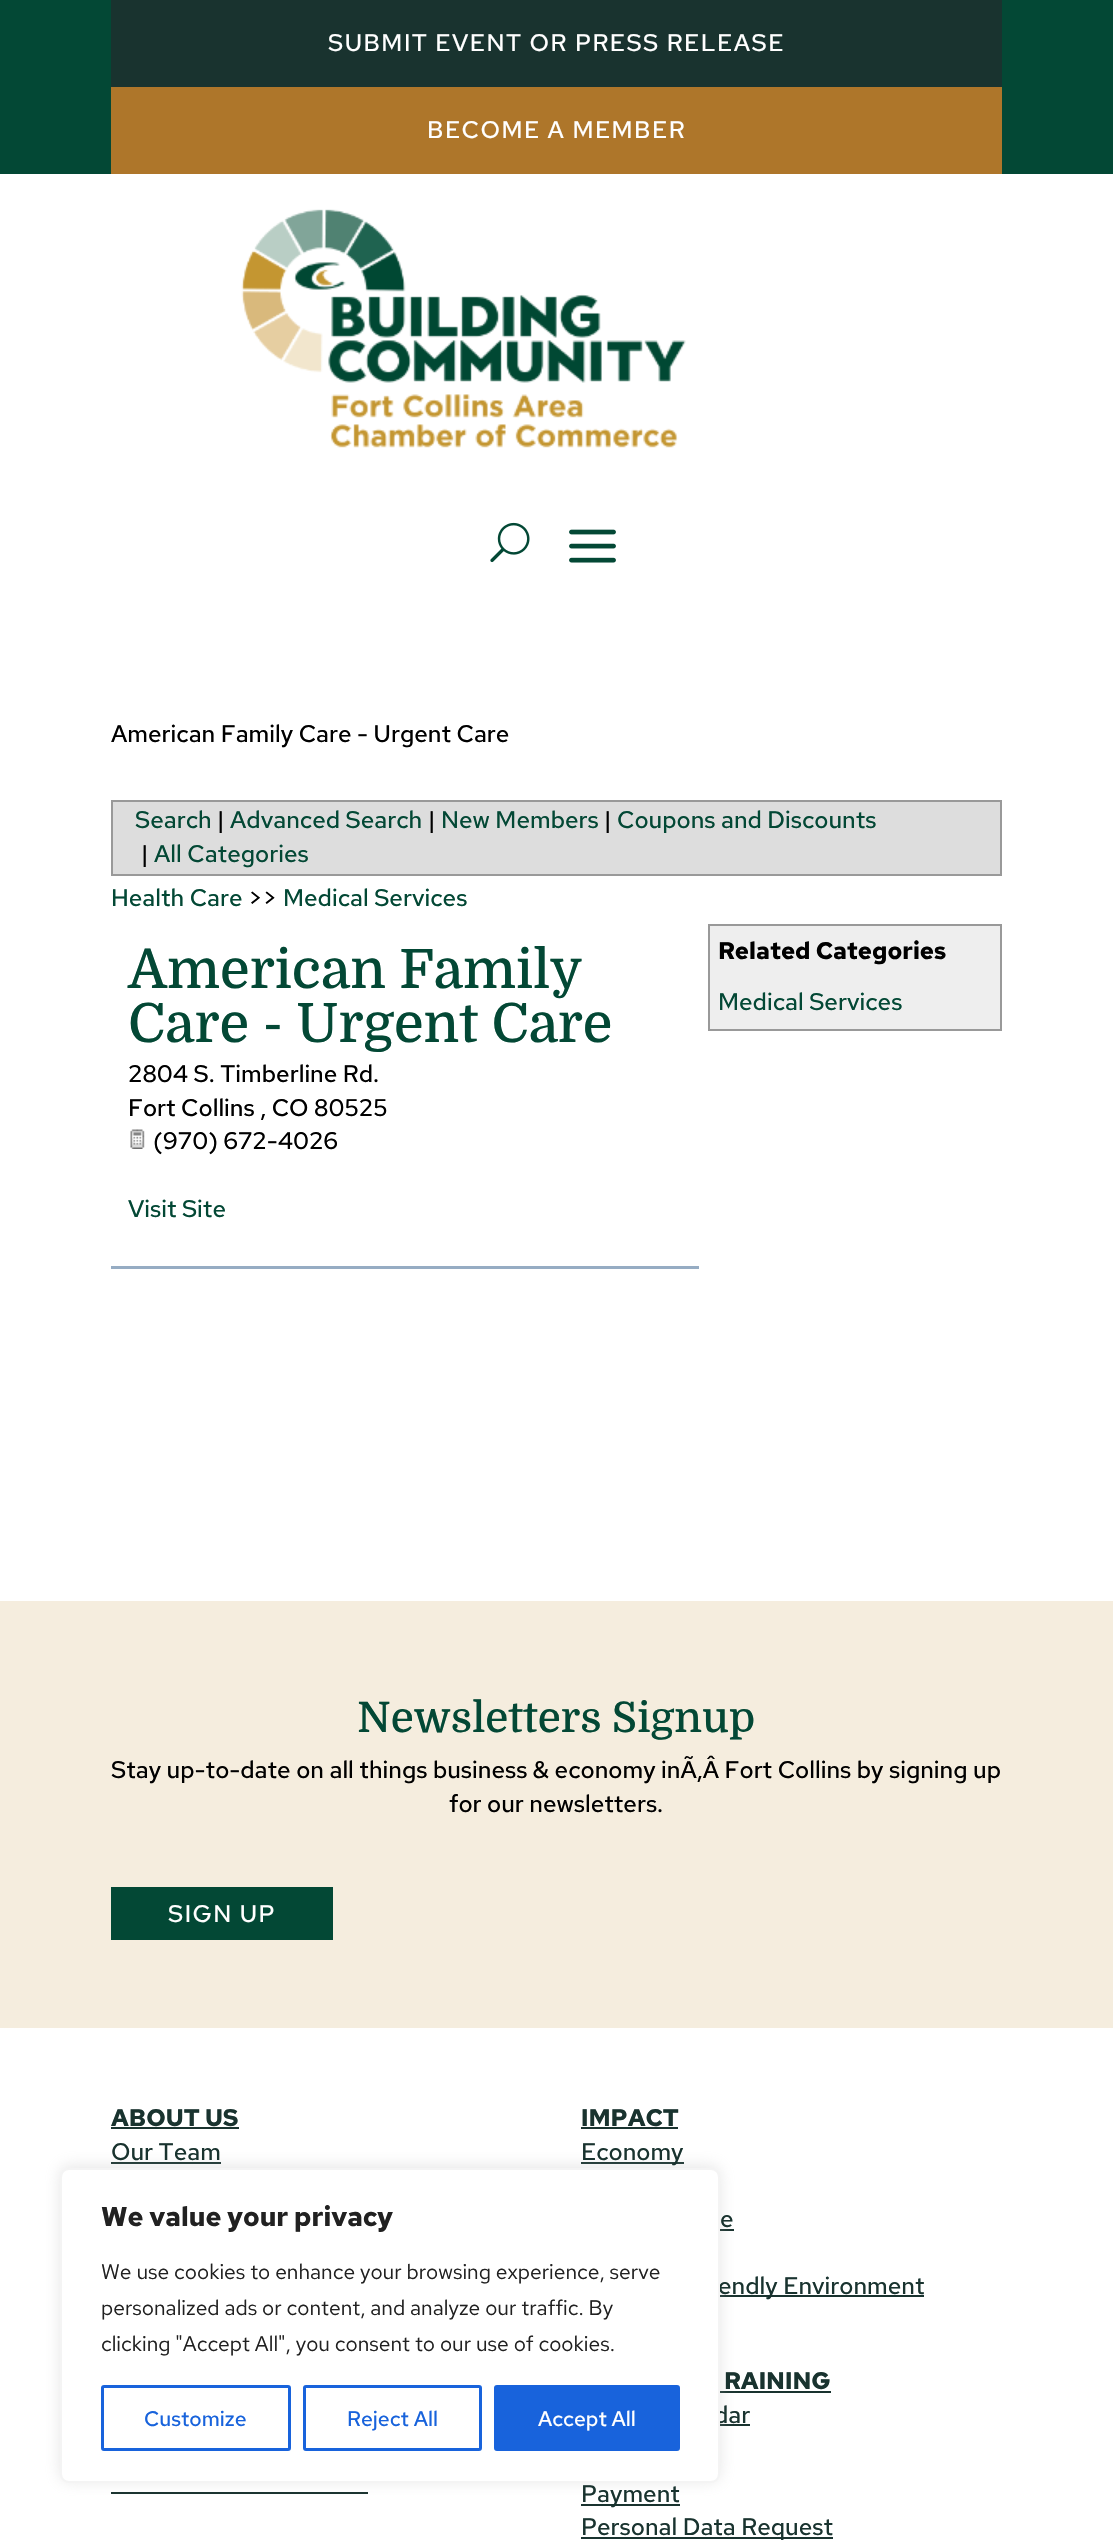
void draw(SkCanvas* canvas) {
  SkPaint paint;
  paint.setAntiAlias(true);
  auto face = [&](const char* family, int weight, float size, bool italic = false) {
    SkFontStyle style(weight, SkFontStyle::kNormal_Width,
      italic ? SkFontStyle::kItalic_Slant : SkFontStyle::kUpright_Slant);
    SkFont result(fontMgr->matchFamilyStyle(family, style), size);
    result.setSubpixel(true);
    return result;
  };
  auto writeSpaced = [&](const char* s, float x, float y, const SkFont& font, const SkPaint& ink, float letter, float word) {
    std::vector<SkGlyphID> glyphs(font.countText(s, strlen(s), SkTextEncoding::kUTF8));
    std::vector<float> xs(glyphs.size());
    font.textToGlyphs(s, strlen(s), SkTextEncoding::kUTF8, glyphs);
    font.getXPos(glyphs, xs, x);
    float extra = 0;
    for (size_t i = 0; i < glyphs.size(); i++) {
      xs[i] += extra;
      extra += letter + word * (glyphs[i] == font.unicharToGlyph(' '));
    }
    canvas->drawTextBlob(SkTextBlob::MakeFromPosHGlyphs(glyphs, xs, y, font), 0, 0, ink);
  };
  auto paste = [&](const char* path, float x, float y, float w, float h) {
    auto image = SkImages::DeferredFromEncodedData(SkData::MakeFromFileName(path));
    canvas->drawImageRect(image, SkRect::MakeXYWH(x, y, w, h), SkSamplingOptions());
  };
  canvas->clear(0xffffffff);
  {
    const struct { float x, y, w, h; SkColor color; } items[] = {
      {0, 0, 1113, 174, 0xff034835},
      {111, 0, 891, 87, 0xff19332f},
      {111, 87, 891, 87, 0xffae762a},
    };
    for (auto [x, y, w, h, color] : items) {
      paint.setColor(color);
      canvas->drawRect(SkRect::MakeXYWH(x, y, w, h), paint);
    }
  }
  paste("img/1.png", 241, 209, 445, 239);
  paste("img/2.png", 490, 522, 40, 41);
  paste("img/3.png", 569, 529, 47, 34);
  paint.setColor(0xffdddddd);
  canvas->drawRect(SkRect::MakeXYWH(112, 801, 889, 74), paint);
  paint.setStroke(true);
  paint.setStrokeWidth(2);
  paint.setColor(0xff999999);
  canvas->drawRect(SkRect::MakeXYWH(112, 801, 889, 74), paint);
  paste("img/4.png", 130, 1129, 15, 20);
  paint.setStroke(false);
  paint.setColor(0xff96acc3);
  canvas->drawRect(SkRect::MakeXYWH(111, 1266, 588, 3), paint);
  paint.setColor(0xffeeeeee);
  canvas->drawRect(SkRect::MakeXYWH(709, 925, 292, 105), paint);
  paint.setStroke(true);
  paint.setColor(0xff999999);
  canvas->drawRect(SkRect::MakeXYWH(709, 925, 292, 105), paint);
  paint.setStroke(false);
  {
    const struct { float x, y, w, h; SkColor color; } items[] = {
      {0, 1601, 1113, 427, 0xfff5edde},
      {111, 1887, 222, 53, 0xff034835},
      {111, 2127, 128, 2, 0xff19332f},
      {111, 2162, 110, 2, 0xff19332f},
      {581, 2127, 97, 2, 0xff19332f},
      {581, 2162, 103, 2, 0xff19332f},
      {720, 2229, 14, 2, 0xff19332f},
      {720, 2295, 204, 2, 0xff19332f},
      {111, 2492, 257, 2, 0xff19332f},
      {720, 2391, 111, 2, 0xff19332f},
      {720, 2424, 30, 2, 0xff19332f},
      {581, 2504, 99, 2, 0xff19332f},
      {581, 2537, 252, 2, 0xff19332f},
    };
    for (auto [x, y, w, h, color] : items) {
      paint.setColor(color);
      canvas->drawRect(SkRect::MakeXYWH(x, y, w, h), paint);
    }
  }
  paint.setColor(0x4dacabab);
  paint.setMaskFilter(SkMaskFilter::MakeBlur(kNormal_SkBlurStyle, 7.5f));
  canvas->drawRoundRect(SkRect::MakeXYWH(60, 2166, 660, 315), 9, 9, paint);
  paint.setMaskFilter(nullptr);
  auto f0 = face("Red Hat Text", 500, 24);
  paint.setColor(0xffffffff);
  writeSpaced("SUBMIT EVENT OR PRESS RELEASE", 328, 51, f0, paint, 1.5f, 0);
  writeSpaced("BECOME A MEMBER", 427, 138, f0, paint, 1.5f, 0);
  paint.setColor(0xff000000);
  canvas->drawString("American Family Care - Urgent Care", 111, 742, f0, paint);
  paint.setColor(0xff034835);
  canvas->drawString("Search", 135, 828, f0, paint);
  paint.setColor(0xff000000);
  canvas->drawString("|", 217, 828, f0, paint);
  paint.setColor(0xff034835);
  canvas->drawString("Advanced Search", 230, 828, f0, paint);
  paint.setColor(0xff000000);
  canvas->drawString("|", 428, 828, f0, paint);
  paint.setColor(0xff034835);
  canvas->drawString("New Members", 441, 828, f0, paint);
  paint.setColor(0xff000000);
  canvas->drawString("|", 604, 828, f0, paint);
  paint.setColor(0xff034835);
  canvas->drawString("Coupons and Discounts", 617, 828, f0, paint);
  paint.setColor(0xff000000);
  canvas->drawString("|", 141, 862, f0, paint);
  paint.setColor(0xff034835);
  canvas->drawString("All Categories", 154, 862, f0, paint);
  canvas->drawString("Health Care", 111, 906, f0, paint);
  paint.setColor(0xff000000);
  canvas->drawString(">>", 248, 906, f0, paint);
  paint.setColor(0xff034835);
  canvas->drawString("Medical Services", 283, 906, f0, paint);
  auto f1 = face("Domine", 500, 54);
  canvas->drawString("American Family", 128, 988, f1, paint);
  canvas->drawString("Care - Urgent Care", 128, 1042, f1, paint);
  paint.setColor(0xff000000);
  {
    const struct { const char* s; float x, y; } items[] = {
      {"2804 S. Timberline Rd.", 128, 1082},
      {"Fort Collins , CO 80525", 128, 1116},
      {"(970) 672-4026", 153, 1149},
    };
    for (auto [s, x, y] : items) {
      canvas->drawString(s, x, y, f0, paint);
    }
  }
  paint.setColor(0xff034835);
  canvas->drawString("Visit Site", 128, 1217, f0, paint);
  auto f2 = face("Red Hat Text", 700, 24);
  paint.setColor(0xff000000);
  canvas->drawString("Related Categories", 718, 959, f2, paint);
  paint.setColor(0xff034835);
  canvas->drawString("Medical Services", 718, 1010, f0, paint);
  auto f3 = face("Domine", 500, 42);
  canvas->drawString("Newsletters Signup", 357, 1732, f3, paint);
  paint.setColor(0xff000000);
  canvas->drawString("Stay up-to-date on all things business & economy inÃ‚Â Fort Collins by signing up", 111, 1778, f0, paint);
  canvas->drawString("for our newsletters.", 449, 1812, f0, paint);
  paint.setColor(0xffffffff);
  writeSpaced("SIGN UP", 168, 1922, f0, paint, 1.5f, 0);
  paint.setColor(0xff19332f);
  canvas->drawString("ABOUT US", 111, 2126, f2, paint);
  canvas->drawString("Our Team", 111, 2160, f0, paint);
  canvas->drawString("IMPACT", 581, 2126, f2, paint);
  {
    const struct { const char* s; float x, y; } items[] = {
      {"Economy", 581, 2160},
      {"e", 720, 2227},
      {"endly Environment", 718, 2294},
    };
    for (auto [s, x, y] : items) {
      canvas->drawString(s, x, y, f0, paint);
    }
  }
  canvas->drawString("RAINING", 724, 2389, f2, paint);
  {
    const struct { const char* s; float x, y; } items[] = {
      {"dar", 714, 2423},
      {"Payment", 581, 2502},
      {"Personal Data Request", 581, 2535},
    };
    for (auto [s, x, y] : items) {
      canvas->drawString(s, x, y, f0, paint);
    }
  }
  paint.setColor(0xffffffff);
  canvas->drawRoundRect(SkRect::MakeXYWH(61, 2169, 658, 313), 8, 8, paint);
  paint.setStroke(true);
  paint.setColor(0xfff4f4f4);
  canvas->drawRoundRect(SkRect::MakeXYWH(61, 2169, 658, 313), 8, 8, paint);
  auto f4 = face("Red Hat Text", 700, 27);
  paint.setStroke(false);
  paint.setColor(0xff212121);
  canvas->drawString("We value your privacy", 101, 2226, f4, paint);
  auto f5 = face("Red Hat Text", 400, 21);
  {
    const struct { const char* s; float x, y; } items[] = {
      {"We use cookies to enhance your browsing experience, serve", 101, 2279},
      {"personalized ads or content, and analyze our traffic. By", 101, 2315},
      {"clicking \"Accept All\", you consent to our use of cookies.", 101, 2351},
    };
    for (auto [s, x, y] : items) {
      canvas->drawString(s, x, y, f5, paint);
    }
  }
  paint.setStroke(true);
  paint.setStrokeWidth(3);
  paint.setColor(0xff1863dc);
  canvas->drawRoundRect(SkRect::MakeXYWH(102.5f, 2386.5f, 187, 63), 1.5f, 1.5f, paint);
  auto f6 = face("Red Hat Text", 500, 21);
  paint.setStroke(false);
  canvas->drawString("Customize", 144, 2426, f6, paint);
  paint.setStroke(true);
  canvas->drawRoundRect(SkRect::MakeXYWH(304.5f, 2386.5f, 176, 63), 1.5f, 1.5f, paint);
  paint.setStroke(false);
  canvas->drawString("Reject All", 347, 2426, f6, paint);
  canvas->drawRoundRect(SkRect::MakeXYWH(495.5f, 2386.5f, 183, 63), 1.5f, 1.5f, paint);
  paint.setStroke(true);
  canvas->drawRoundRect(SkRect::MakeXYWH(495.5f, 2386.5f, 183, 63), 1.5f, 1.5f, paint);
  paint.setStroke(false);
  paint.setColor(0xffffffff);
  canvas->drawString("Accept All", 538, 2426, f6, paint);
}
